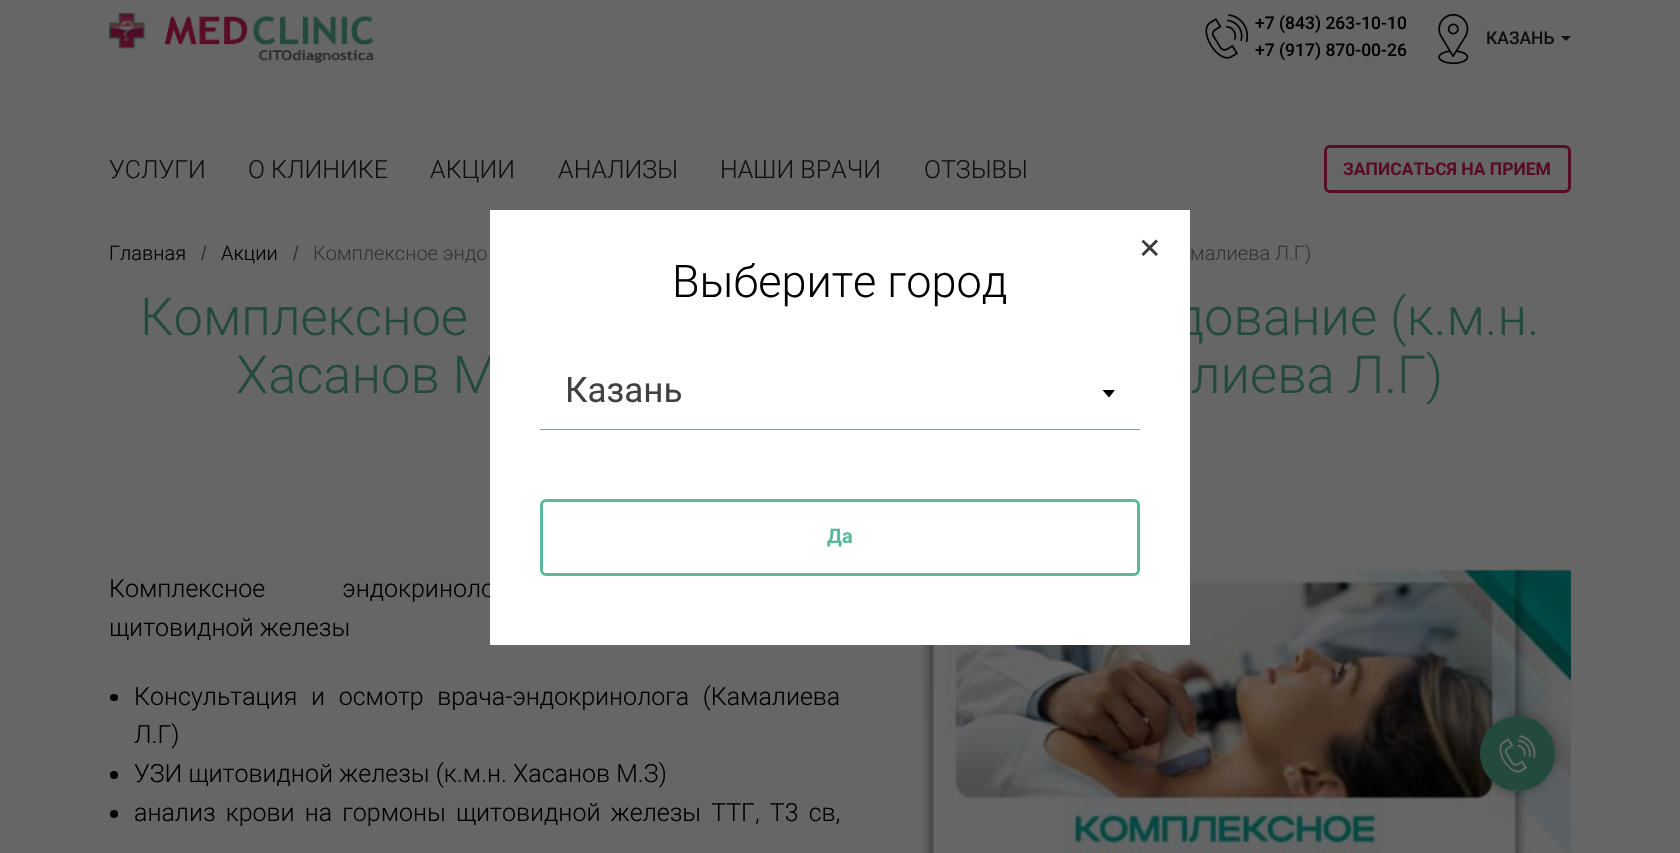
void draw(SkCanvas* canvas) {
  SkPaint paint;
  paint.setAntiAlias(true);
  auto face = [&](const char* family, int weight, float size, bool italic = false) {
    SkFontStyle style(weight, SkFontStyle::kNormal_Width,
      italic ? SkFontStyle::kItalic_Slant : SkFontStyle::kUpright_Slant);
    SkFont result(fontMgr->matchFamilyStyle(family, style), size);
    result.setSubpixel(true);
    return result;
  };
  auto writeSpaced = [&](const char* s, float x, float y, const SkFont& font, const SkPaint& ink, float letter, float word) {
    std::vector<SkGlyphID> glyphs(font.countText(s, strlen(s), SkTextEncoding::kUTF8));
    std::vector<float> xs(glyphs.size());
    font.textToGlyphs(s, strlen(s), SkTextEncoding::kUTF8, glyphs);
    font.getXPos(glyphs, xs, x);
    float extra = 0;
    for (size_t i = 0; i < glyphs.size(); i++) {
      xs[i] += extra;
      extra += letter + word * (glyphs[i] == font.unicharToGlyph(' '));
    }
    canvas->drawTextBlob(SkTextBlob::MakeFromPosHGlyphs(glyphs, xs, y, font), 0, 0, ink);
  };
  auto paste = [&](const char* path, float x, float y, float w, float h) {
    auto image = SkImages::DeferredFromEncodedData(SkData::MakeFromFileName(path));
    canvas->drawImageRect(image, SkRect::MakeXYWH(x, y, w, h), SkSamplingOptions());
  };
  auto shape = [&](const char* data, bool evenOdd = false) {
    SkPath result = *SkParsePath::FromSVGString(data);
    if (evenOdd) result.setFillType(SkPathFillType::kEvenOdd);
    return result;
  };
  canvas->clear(0xff666666);
  paste("img/1.png", 109, 13, 265, 50);
  paste("img/2.png", 1205, 14, 44, 45);
  paste("img/3.png", 1438, 14, 31, 51);
  paint.setColor(0xff101010);
  canvas->drawPath(shape("M1561 36H1571L1566 41Z"), paint);
  paint.setStroke(true);
  paint.setStrokeWidth(3);
  paint.setColor(0xff580c26);
  canvas->drawRoundRect(SkRect::MakeXYWH(1325.5f, 146.5f, 244, 45), 4.5f, 4.5f, paint);
  paste("img/4.png", 921, 569, 650, 284);
  paint.setStroke(false);
  paint.setColor(0xff000000);
  canvas->drawRoundRect(SkRect::MakeXYWH(110, 694, 8, 7), 3.5f, 3.5f, paint);
  canvas->drawCircle(114, 775, 4, paint);
  canvas->drawCircle(114, 814, 4, paint);
  paint.setColor(0x4d000000);
  paint.setMaskFilter(SkMaskFilter::MakeBlur(kNormal_SkBlurStyle, 6));
  canvas->drawRoundRect(SkRect::MakeXYWH(1480, 716, 75, 75), 37.5f, 37.5f, paint);
  paint.setMaskFilter(nullptr);
  paint.setColor(0xff244a3e);
  canvas->drawCircle(1517.5f, 753.5f, 37.5f, paint);
  paste("img/5.png", 1499, 735, 37, 38);
  auto f0 = face("Roboto", 500, 17.5f);
  paint.setColor(0xff000000);
  canvas->drawString("+7 (843) 263-10-10", 1255, 29, f0, paint);
  canvas->drawString("+7 (917) 870-00-26", 1255, 56, f0, paint);
  paint.setColor(0xff101010);
  canvas->drawString("КАЗАНЬ", 1486, 44, f0, paint);
  auto f1 = face("Roboto", 300, 25);
  {
    const struct { const char* s; float x, y; } items[] = {
      {"УСЛУГИ", 109, 178},
      {"О КЛИНИКЕ", 248, 178},
      {"АКЦИИ", 430, 178},
      {"АНАЛИЗЫ", 558, 178},
      {"НАШИ ВРАЧИ", 720, 178},
      {"ОТЗЫВЫ", 924, 178},
    };
    for (auto [s, x, y] : items) {
      canvas->drawString(s, x, y, f1, paint);
    }
  }
  auto f2 = face("Roboto", 700, 17.5f);
  paint.setColor(0xff580c26);
  canvas->drawString("ЗАПИСАТЬСЯ НА ПРИЕМ", 1343, 175, f2, paint);
  auto f3 = face("Roboto", 300, 20);
  paint.setColor(0xff000000);
  canvas->drawString("Главная", 109, 260, f3, paint);
  auto f4 = face("Liberation Sans", 400, 20);
  paint.setColor(0xff353535);
  canvas->drawString("/", 201, 260, f4, paint);
  paint.setColor(0xff000000);
  canvas->drawString("Акции", 221, 260, f3, paint);
  paint.setColor(0xff353535);
  canvas->drawString("/", 293, 260, f4, paint);
  canvas->drawString("Комплексное эндо", 313, 260, f3, paint);
  canvas->drawString("малиева Л.Г)", 1190, 260, f3, paint);
  auto f5 = face("Roboto", 300, 52.5f);
  paint.setColor(0xff244a3e);
  {
    const struct { const char* s; float x, y; } items[] = {
      {"Комплексное", 140, 335},
      {"дование (к.м.н.", 1174, 335},
      {"Хасанов М", 236, 393},
      {"лиева Л.Г)", 1191, 393},
    };
    for (auto [s, x, y] : items) {
      canvas->drawString(s, x, y, f5, paint);
    }
  }
  paint.setColor(0xff000000);
  writeSpaced("Комплексное эндокриноло", 109, 597, f1, paint, 0, 71);
  canvas->drawString("щитовидной железы", 109, 636, f1, paint);
  writeSpaced("Консультация и осмотр врача-эндокринолога (Камалиева", 134, 705, f1, paint, 0, 7.5f);
  canvas->drawString("Л.Г)", 134, 743, f1, paint);
  canvas->drawString("УЗИ щитовидной железы (к.м.н. Хасанов М.З)", 134, 782, f1, paint);
  writeSpaced("анализ крови на гормоны щитовидной железы ТТГ, Т3 св,", 134, 821, f1, paint, 0, 4);
  paint.setColor(0xffffffff);
  canvas->drawRoundRect(SkRect::MakeXYWH(490, 210, 700, 435), 1, 1, paint);
  canvas->drawRect(SkRect::MakeXYWH(490, 210, 700, 1), paint);
  auto f6 = face("DejaVu Sans", 400, 28);
  paint.setColor(0xff3b3b3b);
  canvas->drawString("✕", 1138, 258, f6, paint);
  auto f7 = face("Roboto", 300, 45);
  paint.setColor(0xff000000);
  canvas->drawString("Выберите город", 672, 297, f7, paint);
  paint.setColor(0xff5ab99b);
  canvas->drawRect(SkRect::MakeXYWH(540, 429, 600, 1), paint);
  auto f8 = face("Roboto", 400, 35);
  paint.setColor(0xff414141);
  canvas->drawString("Казань", 565, 402, f8, paint);
  paint.setColor(0xff000000);
  canvas->drawPath(shape("M1102.5 390H1115L1109 397.5Z"), paint);
  paint.setStroke(true);
  paint.setColor(0xff5ab99b);
  canvas->drawRoundRect(SkRect::MakeXYWH(541.5f, 500.5f, 597, 74), 4.5f, 4.5f, paint);
  auto f9 = face("Roboto", 700, 20);
  paint.setStroke(false);
  canvas->drawString("Да", 827, 543, f9, paint);
}
